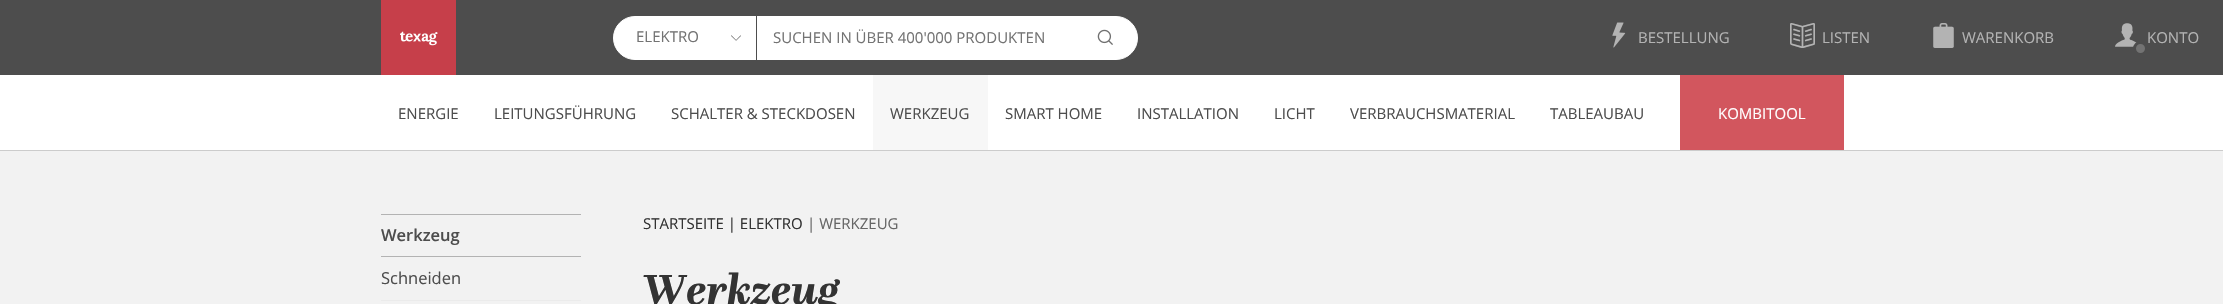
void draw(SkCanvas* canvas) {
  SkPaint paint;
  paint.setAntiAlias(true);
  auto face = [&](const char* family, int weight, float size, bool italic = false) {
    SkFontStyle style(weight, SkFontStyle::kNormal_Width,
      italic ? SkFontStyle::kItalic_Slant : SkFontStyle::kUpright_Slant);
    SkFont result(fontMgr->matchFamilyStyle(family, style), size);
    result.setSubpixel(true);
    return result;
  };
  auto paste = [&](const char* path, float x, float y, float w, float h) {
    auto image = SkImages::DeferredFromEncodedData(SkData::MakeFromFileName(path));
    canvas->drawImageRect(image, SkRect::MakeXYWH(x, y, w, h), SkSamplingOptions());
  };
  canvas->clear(0xfff2f2f2);
  paint.setColor(0xff4d4d4d);
  canvas->drawRect(SkRect::MakeXYWH(0, 0, 2223, 75), paint);
  paint.setColor(0xffc63f4a);
  canvas->drawRect(SkRect::MakeXYWH(381, 0, 75, 75), paint);
  paste("img/1.png", 400, 31, 38, 15);
  paint.setColor(0xffffffff);
  canvas->drawRoundRect(SkRect::MakeXYWH(613.5f, 16.5f, 524, 43), 21.5f, 21.5f, paint);
  paint.setStroke(true);
  paint.setStrokeWidth(1);
  canvas->drawRoundRect(SkRect::MakeXYWH(613.5f, 16.5f, 524, 43), 21.5f, 21.5f, paint);
  paint.setStroke(false);
  paint.setColor(0xff4d4d4d);
  canvas->drawRect(SkRect::MakeXYWH(756, 16, 1, 44), paint);
  paste("img/2.png", 1097, 29, 16, 16);
  paste("img/3.png", 1612, 22, 14, 26);
  paste("img/4.png", 2115, 23, 22, 24);
  paint.setColor(0xff737373);
  canvas->drawCircle(2140.5f, 48.5f, 6, paint);
  paint.setStroke(true);
  paint.setStrokeWidth(3);
  paint.setColor(0xff4d4d4d);
  canvas->drawCircle(2140.5f, 48.5f, 6, paint);
  paint.setStroke(false);
  {
    const struct { float x, y, w, h; SkColor color; } items[] = {
      {0, 75, 363, 75, 0xffffffff},
      {363, 75, 1860, 75, 0xffffffff},
      {873, 75, 115, 75, 0xfff7f7f7},
      {1680, 75, 164, 75, 0xffd2565e},
      {0, 150, 2223, 1, 0xffcccccc},
      {381, 214, 200, 1, 0xffb3b3b3},
      {381, 256, 200, 1, 0xffb3b3b3},
      {381, 300, 200, 1, 0xffebebeb},
    };
    for (auto [x, y, w, h, color] : items) {
      paint.setColor(color);
      canvas->drawRect(SkRect::MakeXYWH(x, y, w, h), paint);
    }
  }
  auto f0 = face("Open Sans", 400, 15);
  paint.setColor(0xff737373);
  canvas->drawString("ELEKTRO", 636, 42, f0, paint);
  auto f1 = face("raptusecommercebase", 400, 10);
  canvas->drawString("#", 731, 43, f1, paint);
  canvas->drawString("SUCHEN IN ÜBER 400'000 PRODUKTEN", 773, 43, f0, paint);
  paint.setColor(0xffb3b3b3);
  canvas->drawString("BESTELLUNG", 1638, 43, f0, paint);
  auto f2 = face("raptusecommercebase", 400, 25);
  canvas->drawString("(", 1790, 48, f2, paint);
  canvas->drawString("LISTEN", 1822, 43, f0, paint);
  canvas->drawString("*", 1931, 48, f2, paint);
  canvas->drawString("WARENKORB", 1962, 43, f0, paint);
  canvas->drawString("KONTO", 2147, 43, f0, paint);
  paint.setColor(0xff4d4d4d);
  {
    const struct { const char* s; float x, y; } items[] = {
      {"ENERGIE", 398, 119},
      {"LEITUNGSFÜHRUNG", 494, 119},
      {"SCHALTER & STECKDOSEN", 671, 119},
      {"WERKZEUG", 890, 119},
      {"SMART HOME", 1005, 119},
      {"INSTALLATION", 1137, 119},
      {"LICHT", 1274, 119},
      {"VERBRAUCHSMATERIAL", 1350, 119},
      {"TABLEAUBAU", 1550, 119},
    };
    for (auto [s, x, y] : items) {
      canvas->drawString(s, x, y, f0, paint);
    }
  }
  paint.setColor(0xffffffff);
  canvas->drawString("KOMBITOOL", 1718, 119, f0, paint);
  auto f3 = face("Open Sans", 600, 16.5f);
  paint.setColor(0xff4d4d4d);
  canvas->drawString("Werkzeug", 381, 241, f3, paint);
  auto f4 = face("Open Sans", 400, 16.5f);
  canvas->drawString("Schneiden", 381, 284, f4, paint);
  paint.setColor(0xff333333);
  canvas->drawString("STARTSEITE | ELEKTRO", 643, 229, f0, paint);
  paint.setColor(0xff666666);
  canvas->drawString("| WERKZEUG", 807, 229, f0, paint);
  auto f5 = face("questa", 700, 43.75f, true);
  paint.setColor(0xff333333);
  canvas->drawString("Werkzeug", 643, 304, f5, paint);
}
